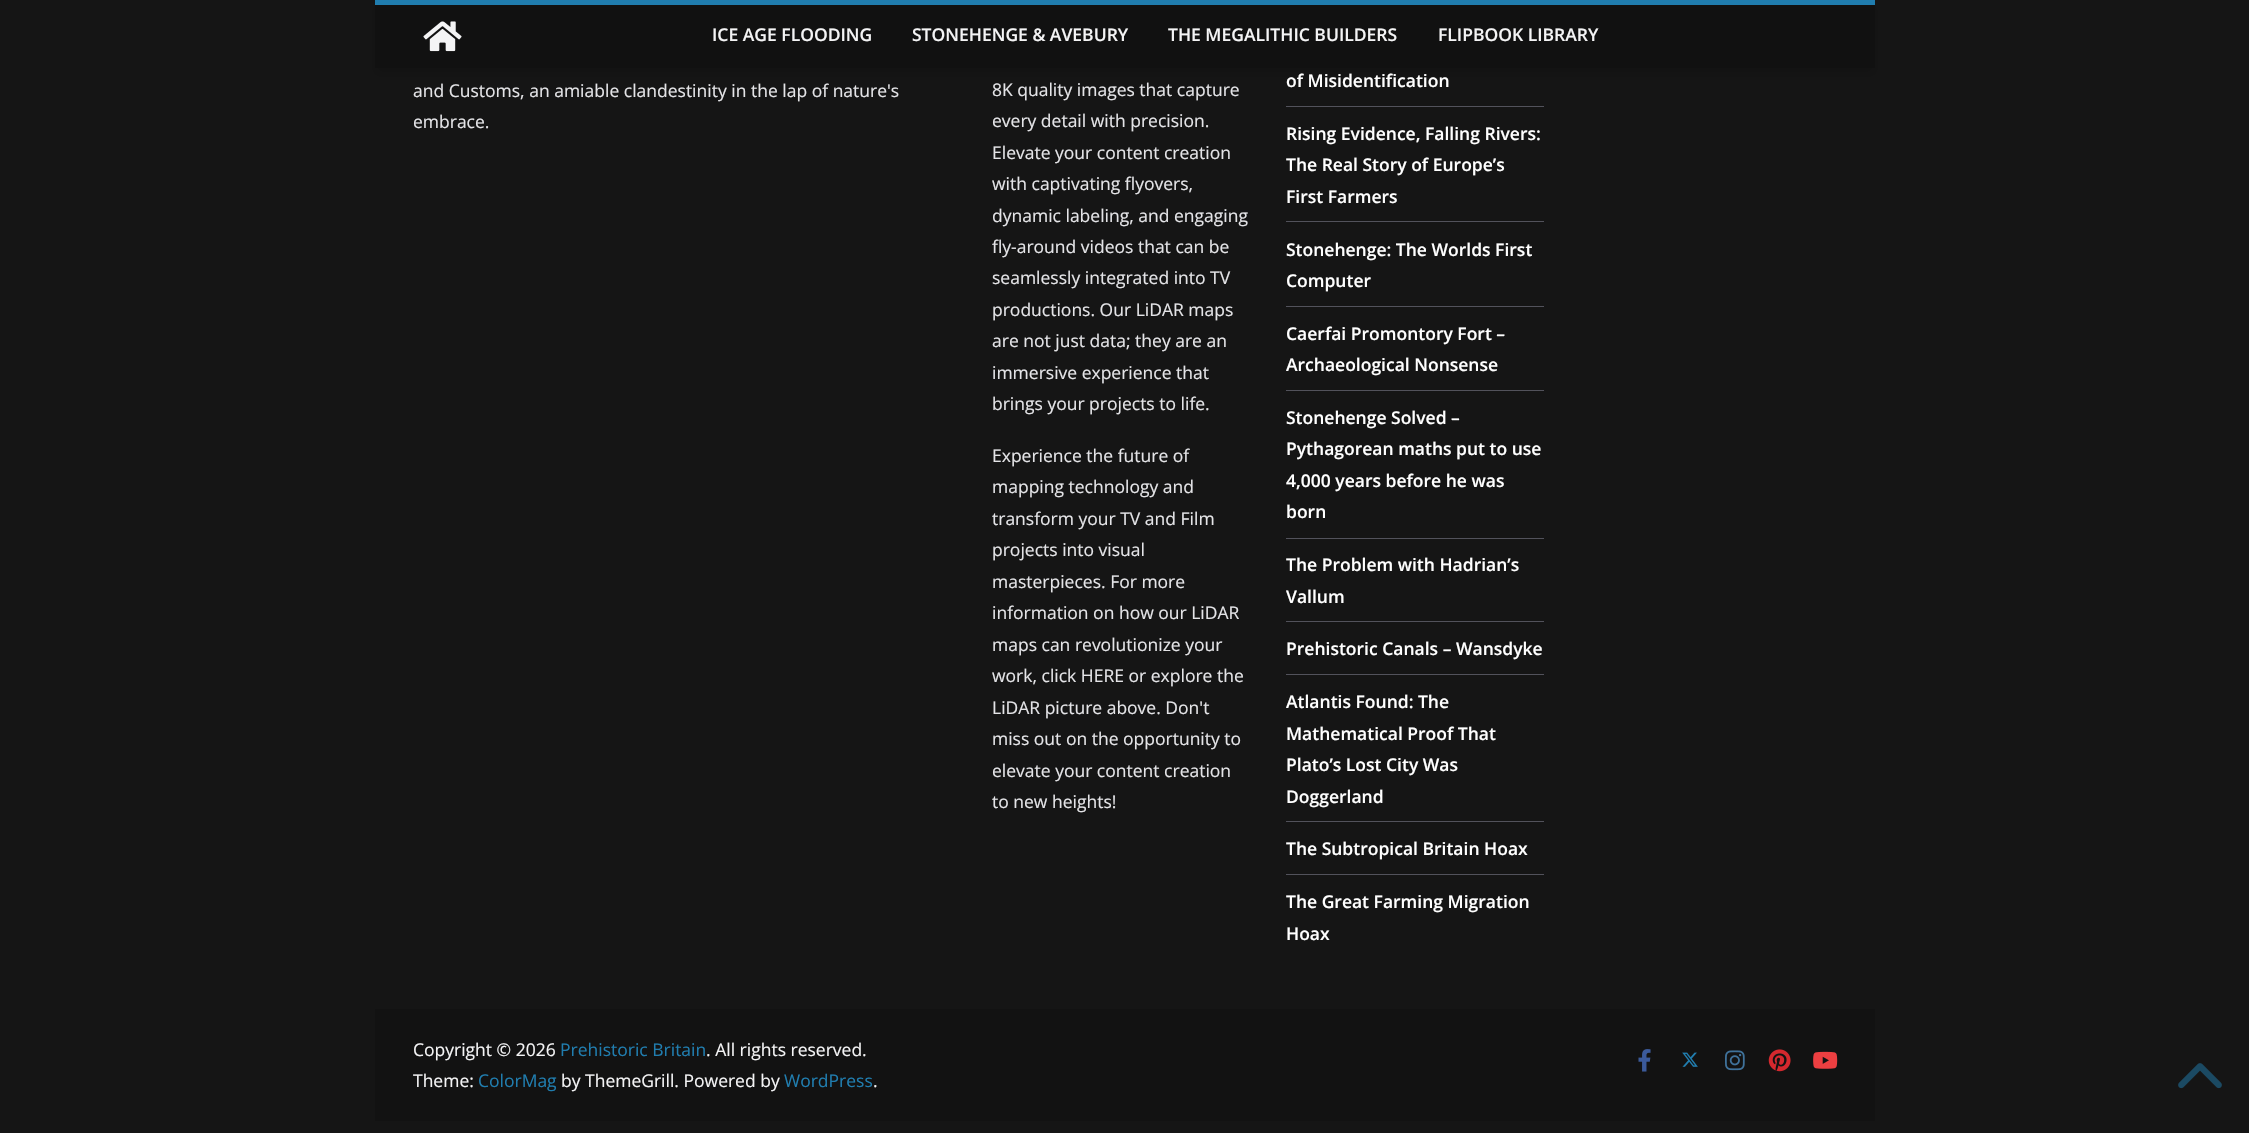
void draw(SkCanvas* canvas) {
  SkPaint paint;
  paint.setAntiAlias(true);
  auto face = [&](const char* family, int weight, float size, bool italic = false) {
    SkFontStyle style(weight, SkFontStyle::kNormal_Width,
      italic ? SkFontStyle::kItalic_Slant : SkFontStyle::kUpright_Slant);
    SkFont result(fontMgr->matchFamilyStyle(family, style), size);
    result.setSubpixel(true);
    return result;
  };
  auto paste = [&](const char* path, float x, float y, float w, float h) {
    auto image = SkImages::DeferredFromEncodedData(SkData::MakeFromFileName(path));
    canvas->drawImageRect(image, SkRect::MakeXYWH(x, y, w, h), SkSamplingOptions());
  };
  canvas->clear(0xff151515);
  paint.setColor(0x1a000000);
  paint.setMaskFilter(SkMaskFilter::MakeBlur(kNormal_SkBlurStyle, 4));
  canvas->drawRect(SkRect::MakeXYWH(375, 6, 1500, 68), paint);
  paint.setMaskFilter(nullptr);
  paint.setColor(0xff111111);
  canvas->drawRect(SkRect::MakeXYWH(375, 5, 1500, 63), paint);
  paint.setColor(0xff207daf);
  canvas->drawRect(SkRect::MakeXYWH(375, 0, 1500, 5), paint);
  paste("img/1.png", 423, 21, 39, 31);
  {
    const struct { float x, y, w, h; SkColor color; } items[] = {
      {1286, 106, 258, 1, 0xff52525b},
      {1286, 221, 258, 1, 0xff52525b},
      {1286, 306, 258, 1, 0xff52525b},
      {1286, 390, 258, 1, 0xff52525b},
      {1286, 538, 258, 1, 0xff52525b},
      {1286, 621, 258, 1, 0xff52525b},
      {1286, 674, 258, 1, 0xff52525b},
      {1286, 821, 258, 1, 0xff52525b},
      {1286, 874, 258, 1, 0xff52525b},
      {375, 1009, 1500, 112, 0xff121212},
    };
    for (auto [x, y, w, h, color] : items) {
      paint.setColor(color);
      canvas->drawRect(SkRect::MakeXYWH(x, y, w, h), paint);
    }
  }
  paste("img/2.png", 1638, 1049, 13, 23);
  paste("img/3.png", 1682, 1052, 16, 15);
  paste("img/4.png", 1725, 1050, 20, 21);
  paste("img/5.png", 1768, 1049, 23, 23);
  paste("img/6.png", 1813, 1051, 25, 18);
  paste("img/7.png", 2178, 1063, 44, 26);
  auto f0 = face("Open Sans", 600, 17.5f);
  paint.setColor(0xfff4f4f5);
  {
    const struct { const char* s; float x, y; } items[] = {
      {"ICE AGE FLOODING", 712, 41},
      {"STONEHENGE & AVEBURY", 912, 41},
      {"THE MEGALITHIC BUILDERS", 1168, 41},
      {"FLIPBOOK LIBRARY", 1438, 41},
    };
    for (auto [s, x, y] : items) {
      canvas->drawString(s, x, y, f0, paint);
    }
  }
  auto f1 = face("Open Sans", 400, 17.5f);
  paint.setColor(0xffe4e4e7);
  {
    const struct { const char* s; float x, y; } items[] = {
      {"and Customs, an amiable clandestinity in the lap of nature's", 413, 97},
      {"embrace.", 413, 128},
      {"8K quality images that capture", 992, 96},
      {"every detail with precision.", 992, 127},
      {"Elevate your content creation", 992, 159},
      {"with captivating flyovers,", 992, 190},
      {"dynamic labeling, and engaging", 992, 222},
      {"fly-around videos that can be", 992, 253},
      {"seamlessly integrated into TV", 992, 284},
      {"productions. Our LiDAR maps", 992, 316},
      {"are not just data; they are an", 992, 347},
      {"immersive experience that", 992, 379},
      {"brings your projects to life.", 992, 410},
      {"Experience the future of", 992, 462},
      {"mapping technology and", 992, 493},
      {"transform your TV and Film", 992, 525},
      {"projects into visual", 992, 556},
      {"masterpieces. For more", 992, 588},
      {"information on how our LiDAR", 992, 619},
      {"maps can revolutionize your", 992, 651},
      {"work, click HERE or explore the", 992, 682},
      {"LiDAR picture above. Don't", 992, 714},
      {"miss out on the opportunity to", 992, 745},
      {"elevate your content creation", 992, 777},
      {"to new heights!", 992, 808},
    };
    for (auto [s, x, y] : items) {
      canvas->drawString(s, x, y, f1, paint);
    }
  }
  paint.setColor(0xffffffff);
  {
    const struct { const char* s; float x, y; } items[] = {
      {"of Misidentification", 1286, 87},
      {"Rising Evidence, Falling Rivers:", 1286, 140},
      {"The Real Story of Europe’s", 1286, 171},
      {"First Farmers", 1286, 203},
      {"Stonehenge: The Worlds First", 1286, 256},
      {"Computer", 1286, 287},
      {"Caerfai Promontory Fort –", 1286, 340},
      {"Archaeological Nonsense", 1286, 371},
      {"Stonehenge Solved –", 1286, 424},
      {"Pythagorean maths put to use", 1286, 455},
      {"4,000 years before he was", 1286, 487},
      {"born", 1286, 518},
      {"The Problem with Hadrian’s", 1286, 571},
      {"Vallum", 1286, 603},
      {"Prehistoric Canals – Wansdyke", 1286, 655},
      {"Atlantis Found: The", 1286, 708},
      {"Mathematical Proof That", 1286, 740},
      {"Plato’s Lost City Was", 1286, 771},
      {"Doggerland", 1286, 803},
      {"The Subtropical Britain Hoax", 1286, 855},
      {"The Great Farming Migration", 1286, 908},
      {"Hoax", 1286, 940},
    };
    for (auto [s, x, y] : items) {
      canvas->drawString(s, x, y, f0, paint);
    }
  }
  paint.setColor(0xfff4f4f5);
  canvas->drawString("Copyright © 2026", 413, 1056, f1, paint);
  paint.setColor(0xff207daf);
  canvas->drawString("Prehistoric Britain", 560, 1056, f1, paint);
  paint.setColor(0xfff4f4f5);
  canvas->drawString(". All rights reserved.", 706, 1056, f1, paint);
  canvas->drawString("Theme:", 413, 1087, f1, paint);
  paint.setColor(0xff207daf);
  canvas->drawString("ColorMag", 478, 1087, f1, paint);
  paint.setColor(0xfff4f4f5);
  canvas->drawString("by ThemeGrill. Powered by", 561, 1087, f1, paint);
  paint.setColor(0xff207daf);
  canvas->drawString("WordPress", 784, 1087, f1, paint);
  paint.setColor(0xfff4f4f5);
  canvas->drawString(".", 873, 1087, f1, paint);
}
